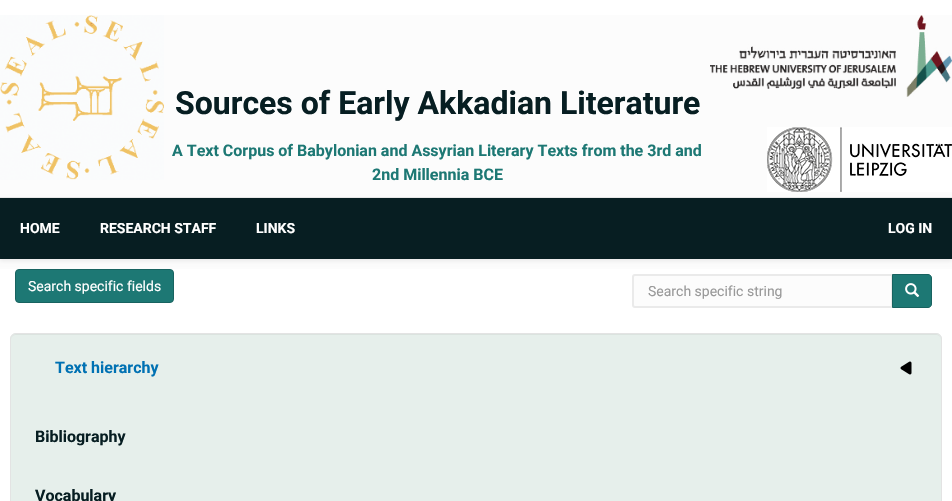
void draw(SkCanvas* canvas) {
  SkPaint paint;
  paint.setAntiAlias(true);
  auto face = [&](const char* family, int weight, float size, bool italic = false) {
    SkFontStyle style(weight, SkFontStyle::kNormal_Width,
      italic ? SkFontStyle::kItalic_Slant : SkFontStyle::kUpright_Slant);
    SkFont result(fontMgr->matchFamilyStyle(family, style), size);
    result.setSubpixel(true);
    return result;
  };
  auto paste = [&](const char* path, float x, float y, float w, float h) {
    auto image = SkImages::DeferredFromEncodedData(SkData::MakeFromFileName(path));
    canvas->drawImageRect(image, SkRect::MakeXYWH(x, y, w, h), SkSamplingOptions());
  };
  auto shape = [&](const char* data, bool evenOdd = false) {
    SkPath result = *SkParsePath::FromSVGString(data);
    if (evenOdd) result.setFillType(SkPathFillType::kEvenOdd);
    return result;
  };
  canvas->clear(0xffffffff);
  paint.setColor(0xfffcfcfc);
  canvas->drawRect(SkRect::MakeXYWH(0, 15, 952, 182), paint);
  paint.setColor(0xffeaeaea);
  canvas->drawRect(SkRect::MakeXYWH(0, 197, 952, 1), paint);
  paste("img/1.png", 0, 15, 164, 165);
  paste("img/2.png", 710, 15, 242, 82);
  paste("img/3.png", 767, 127, 185, 65);
  paint.setColor(0xfffcfcfc);
  canvas->drawRect(SkRect::MakeXYWH(0, 259, 952, 10), paint);
  paint.setColor(0x12000000);
  paint.setMaskFilter(SkMaskFilter::MakeBlur(kNormal_SkBlurStyle, 2));
  canvas->drawRect(SkRect::MakeXYWH(0, 200, 952, 61), paint);
  paint.setMaskFilter(nullptr);
  paint.setColor(0xff071e22);
  canvas->drawRect(SkRect::MakeXYWH(0, 198, 952, 61), paint);
  paint.setColor(0xff1d7874);
  canvas->drawRoundRect(SkRect::MakeXYWH(15.5f, 269.5f, 158, 33), 3.5f, 3.5f, paint);
  paint.setStroke(true);
  paint.setStrokeWidth(1);
  paint.setColor(0xff186360);
  canvas->drawRoundRect(SkRect::MakeXYWH(15.5f, 269.5f, 158, 33), 3.5f, 3.5f, paint);
  paint.setStroke(false);
  paint.setColor(0xfffcfcfc);
  canvas->drawPath(shape("M635 275H892V307H635C634 307 633 306 633 305V277C633 276 634 275 635 275Z"), paint);
  paint.setStroke(true);
  paint.setStrokeWidth(2);
  paint.setColor(0xffeaeaea);
  canvas->drawPath(shape("M635 275H892V307H635C634 307 633 306 633 305V277C633 276 634 275 635 275Z"), paint);
  paint.setStroke(false);
  paint.setColor(0xff1d7874);
  canvas->drawPath(shape("M892.5 274.5H928C930 274.5 931.5 276 931.5 278V304C931.5 306 930 307.5 928 307.5H892.5Z"), paint);
  paint.setStroke(true);
  paint.setStrokeWidth(1);
  paint.setColor(0xff186360);
  canvas->drawPath(shape("M892.5 274.5H928C930 274.5 931.5 276 931.5 278V304C931.5 306 930 307.5 928 307.5H892.5Z"), paint);
  paste("img/4.png", 905, 283, 15, 14);
  paint.setStroke(false);
  paint.setColor(0xffe6efeb);
  canvas->drawRoundRect(SkRect::MakeXYWH(10, 333, 932, 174), 6, 6, paint);
  paint.setColor(0xffdbe3df);
  canvas->drawPath(shape("M16 335H936C939 335 941 337 941 340C941 337 939 334 936 334H16C13 334 11 337 11 340C11 337 13 335 16 335Z"), paint);
  paint.setStroke(true);
  paint.setColor(0xffe3e3e3);
  canvas->drawRoundRect(SkRect::MakeXYWH(10.5f, 333.5f, 931, 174), 5.5f, 5.5f, paint);
  paste("img/5.png", 900, 361, 12, 14);
  auto f0 = face("Roboto", 700, 32);
  paint.setStroke(false);
  paint.setColor(0xff071e22);
  canvas->drawString("Sources of Early Akkadian Literature", 175, 114, f0, paint);
  auto f1 = face("Roboto", 700, 16);
  paint.setColor(0xff1d7874);
  canvas->drawString("A Text Corpus of Babylonian and Assyrian Literary Texts from the 3rd and", 172, 156, f1, paint);
  canvas->drawString("2nd Millennia BCE", 372, 180, f1, paint);
  auto f2 = face("Roboto", 700, 14);
  paint.setColor(0xffffffff);
  {
    const struct { const char* s; float x, y; } items[] = {
      {"HOME", 20, 233},
      {"RESEARCH STAFF", 100, 233},
      {"LINKS", 256, 233},
      {"LOG IN", 888, 233},
    };
    for (auto [s, x, y] : items) {
      canvas->drawString(s, x, y, f2, paint);
    }
  }
  auto f3 = face("Roboto", 400, 14);
  canvas->drawString("Search specific fields", 28, 291, f3, paint);
  paint.setColor(0xff999999);
  canvas->drawString("Search specific string", 648, 296, f3, paint);
  paint.setColor(0xff0071b3);
  canvas->drawString("Text hierarchy", 55, 373, f1, paint);
  paint.setColor(0xff071e22);
  canvas->drawString("Bibliography", 35, 442, f1, paint);
  canvas->drawString("Vocabulary", 35, 501, f1, paint);
}
